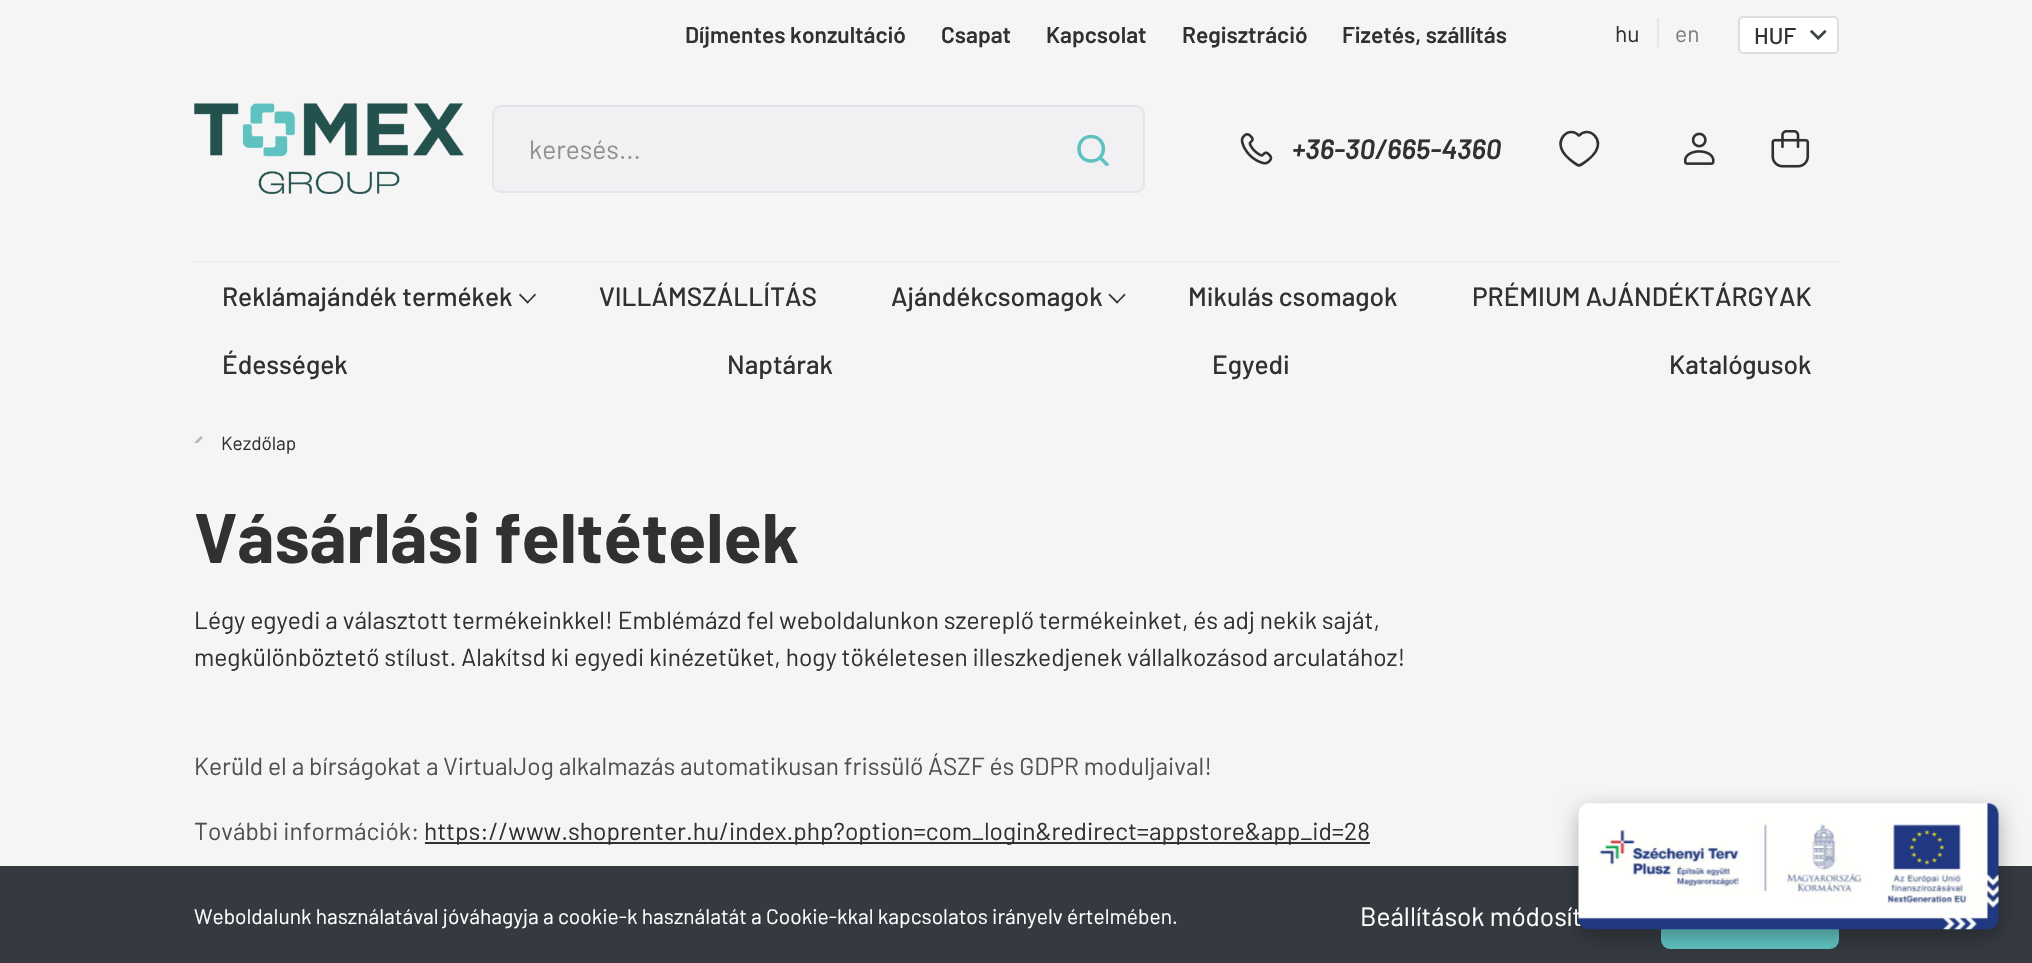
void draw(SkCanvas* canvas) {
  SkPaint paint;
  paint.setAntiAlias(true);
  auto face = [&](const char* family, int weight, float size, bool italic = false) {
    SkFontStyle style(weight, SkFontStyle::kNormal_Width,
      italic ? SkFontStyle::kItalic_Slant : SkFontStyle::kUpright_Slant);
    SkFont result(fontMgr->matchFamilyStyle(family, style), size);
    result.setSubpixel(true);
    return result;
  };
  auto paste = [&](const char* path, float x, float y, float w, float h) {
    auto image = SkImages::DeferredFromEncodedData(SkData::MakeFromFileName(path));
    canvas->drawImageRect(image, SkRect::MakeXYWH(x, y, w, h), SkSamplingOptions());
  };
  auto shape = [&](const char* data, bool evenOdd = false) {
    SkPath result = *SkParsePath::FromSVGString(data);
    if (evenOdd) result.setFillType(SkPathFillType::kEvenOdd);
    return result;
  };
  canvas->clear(0xfff5f5f5);
  paint.setColor(0xffe4e4ea);
  canvas->drawRect(SkRect::MakeXYWH(1657, 18, 2, 29), paint);
  paint.setColor(0xffffffff);
  canvas->drawRoundRect(SkRect::MakeXYWH(1738, 16, 101, 38), 5, 5, paint);
  paste("img/1.png", 1810, 30, 17, 10);
  paint.setStroke(true);
  paint.setStrokeWidth(2);
  paint.setColor(0xffdddde1);
  canvas->drawRoundRect(SkRect::MakeXYWH(1739, 17, 99, 36), 4, 4, paint);
  paste("img/2.png", 194, 103, 270, 91);
  paint.setStroke(false);
  paint.setColor(0xfff1f1f4);
  canvas->drawRoundRect(SkRect::MakeXYWH(493, 106, 651, 86), 8, 8, paint);
  paint.setStroke(true);
  paint.setColor(0xffe4e4ea);
  canvas->drawRoundRect(SkRect::MakeXYWH(493, 106, 651, 86), 8, 8, paint);
  canvas->save();
  canvas->clipRect(SkRect::MakeXYWH(1076, 135, 34, 31));
  paint.setStrokeWidth(3.5f);
  paint.setStrokeCap(SkPaint::kRound_Cap);
  paint.setStrokeJoin(SkPaint::kRound_Join);
  paint.setColor(0xff5fc2c0);
  canvas->drawPath(shape("M1107 164.5L1100 157.5M1091 161C1075 161 1075 136.5 1091 136.5C1107.5 136.5 1107.5 161 1091 161Z"), paint);
  canvas->restore();
  paste("img/3.png", 1240, 133, 33, 32);
  paint.setStrokeWidth(2.6f);
  paint.setColor(0xff2f3132);
  canvas->drawPath(shape("M1586.5 132C1593.5 132 1598 138.5 1598 144C1598 156 1579.5 165.5 1579 165.5C1578.5 165.5 1560.5 156 1560.5 144C1560.5 138.5 1565 132 1571.5 132C1575 132 1577.5 134 1579 135.5C1580.5 134 1583 132 1586.5 132Z"), paint);
  paste("img/4.png", 1684, 132, 31, 33);
  paste("img/5.png", 1771, 130, 39, 38);
  paint.setStroke(false);
  paint.setColor(0xffe8e8ed);
  canvas->drawPath(shape("M194 261V396V262H1839V261Z"), paint);
  paint.setColor(0xff2f3132);
  canvas->drawPath(shape("M535 293.5L536 295L527.5 303.5L526.5 302.5Z"), paint);
  canvas->drawPath(shape("M520 293.5L529 302.5L527.5 303.5L519 295Z"), paint);
  canvas->drawPath(shape("M1124.5 293.5L1125.5 295L1117 303.5L1116 302.5Z"), paint);
  canvas->drawPath(shape("M1109.5 293.5L1118.5 302.5L1117 303.5L1108.5 295Z"), paint);
  paste("img/6.png", 194, 436, 9, 7);
  canvas->drawRect(SkRect::MakeXYWH(425, 842, 945, 2), paint);
  paint.setColor(0xff343a40);
  canvas->drawRect(SkRect::MakeXYWH(0, 866, 2032, 97), paint);
  paint.setColor(0xff5fc2c0);
  canvas->drawRoundRect(SkRect::MakeXYWH(1661, 882, 178, 67), 9, 9, paint);
  paint.setColor(0x4d000000);
  paint.setMaskFilter(SkMaskFilter::MakeBlur(kNormal_SkBlurStyle, 10.5f));
  canvas->drawRoundRect(SkRect::MakeXYWH(1579, 810, 420, 126), 11, 11, paint);
  paint.setMaskFilter(nullptr);
  auto f0 = face("Barlow", 600, 22.75f);
  paint.setColor(0xff2f3132);
  {
    const struct { const char* s; float x, y; } items[] = {
      {"Díjmentes konzultáció", 685, 43},
      {"Csapat", 941, 43},
      {"Kapcsolat", 1046, 43},
      {"Regisztráció", 1182, 43},
      {"Fizetés, szállítás", 1342, 43},
    };
    for (auto [s, x, y] : items) {
      canvas->drawString(s, x, y, f0, paint);
    }
  }
  auto f1 = face("Barlow", 400, 22.75f);
  canvas->drawString("hu", 1615, 42, f1, paint);
  paint.setColor(0xff7e7f80);
  canvas->drawString("en", 1675, 42, f1, paint);
  auto f2 = face("Barlow", 500, 22.75f);
  paint.setColor(0xff2f3132);
  canvas->drawString("HUF", 1754, 44, f2, paint);
  auto f3 = face("Barlow", 400, 26.25f);
  paint.setColor(0xff909193);
  canvas->drawString("keresés...", 529, 159, f3, paint);
  auto f4 = face("Barlow", 600, 28, true);
  paint.setColor(0xff2f3132);
  canvas->drawString("+36-30/665-4360", 1292, 159, f4, paint);
  auto f5 = face("Barlow", 500, 26.25f);
  {
    const struct { const char* s; float x, y; } items[] = {
      {"Reklámajándék termékek", 222, 306},
      {"VILLÁMSZÁLLÍTÁS", 599, 306},
      {"Ajándékcsomagok", 891, 306},
      {"Mikulás csomagok", 1188, 306},
      {"PRÉMIUM AJÁNDÉKTÁRGYAK", 1472, 306},
      {"Édességek", 222, 374},
      {"Naptárak", 727, 374},
      {"Egyedi", 1212, 374},
      {"Katalógusok", 1669, 374},
    };
    for (auto [s, x, y] : items) {
      canvas->drawString(s, x, y, f5, paint);
    }
  }
  auto f6 = face("Barlow", 400, 19);
  canvas->drawString("Kezdőlap", 221, 450, f6, paint);
  auto f7 = face("Barlow", 700, 70);
  canvas->drawString("Vásárlási feltételek", 194, 563, f7, paint);
  auto f8 = face("Barlow", 400, 24.5f);
  canvas->drawString("Légy egyedi a választott termékeinkkel! Emblémázd fel weboldalunkon szereplő termékeinket, és adj nekik saját,", 194, 629, f8, paint);
  canvas->drawString("megkülönböztető stílust. Alakítsd ki egyedi kinézetüket, hogy tökéletesen illeszkedjenek vállalkozásod arculatához!", 194, 666, f8, paint);
  paint.setColor(0xff4f5153);
  canvas->drawString("Kerüld el a bírságokat a VirtualJog alkalmazás automatikusan frissülő ÁSZF és GDPR moduljaival!", 194, 775, f8, paint);
  canvas->drawString("További információk:", 194, 840, f8, paint);
  paint.setColor(0xff2f3132);
  canvas->drawString("https://www.shoprenter.hu/index.php?option=com_login&redirect=appstore&app_id=28", 424, 840, f8, paint);
  auto f9 = face("Barlow", 400, 21);
  paint.setColor(0xffffffff);
  canvas->drawString("Weboldalunk használatával jóváhagyja a cookie-k használatát a Cookie-kkal kapcsolatos irányelv értelmében.", 194, 924, f9, paint);
  canvas->drawString("Beállítások módosít", 1360, 926, f3, paint);
  paste("img/7.png", 1578, 803, 421, 127);
}
